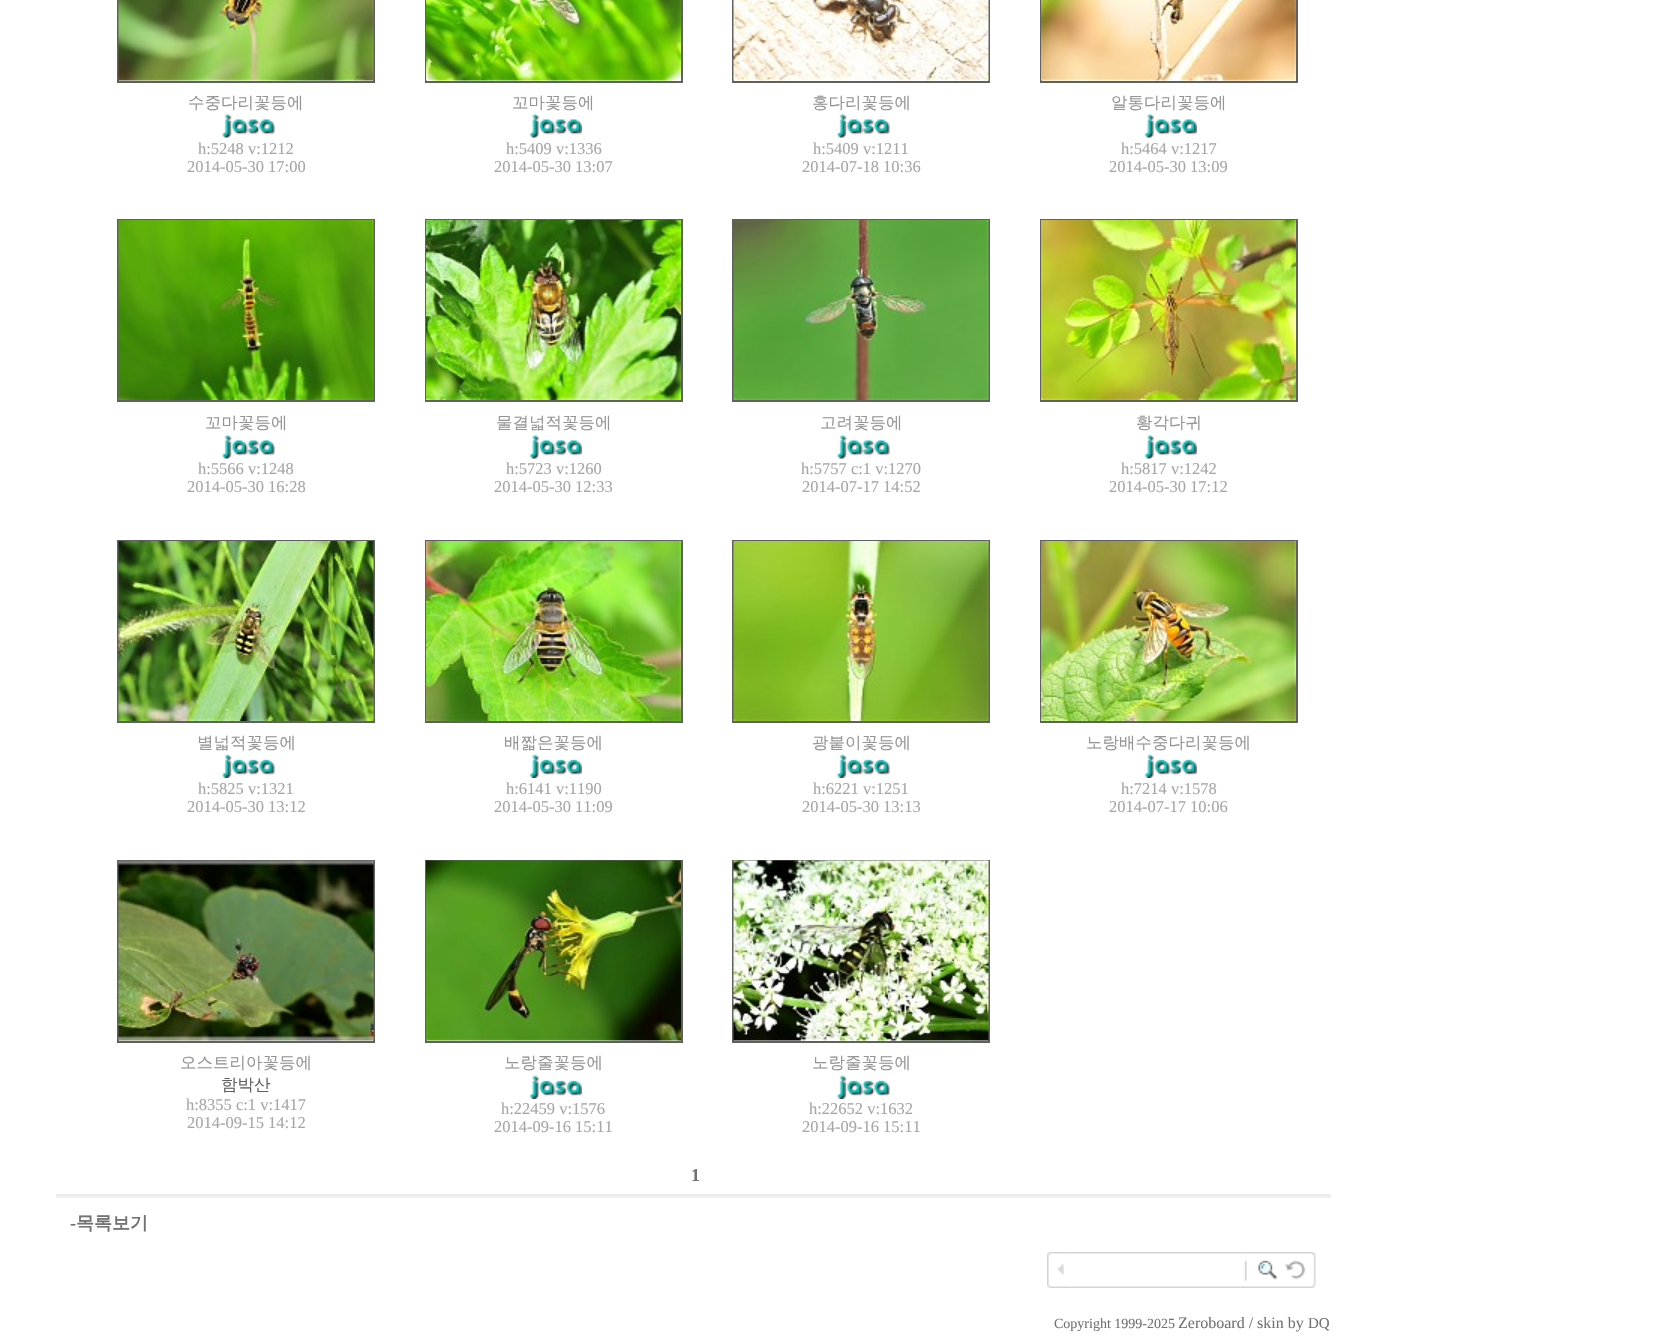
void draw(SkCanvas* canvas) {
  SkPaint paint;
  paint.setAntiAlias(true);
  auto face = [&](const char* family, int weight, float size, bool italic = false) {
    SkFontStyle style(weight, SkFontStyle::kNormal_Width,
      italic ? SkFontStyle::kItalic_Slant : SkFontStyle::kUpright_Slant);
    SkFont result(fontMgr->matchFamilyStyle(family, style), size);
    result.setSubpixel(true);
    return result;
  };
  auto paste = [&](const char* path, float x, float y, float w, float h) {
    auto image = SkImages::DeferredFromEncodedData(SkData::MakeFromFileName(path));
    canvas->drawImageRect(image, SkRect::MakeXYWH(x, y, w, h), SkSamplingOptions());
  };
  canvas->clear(0xffffffff);
  paint.setStroke(true);
  paint.setStrokeWidth(2);
  paint.setColor(0xff606060);
  canvas->drawRect(SkRect::MakeXYWH(118, -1, 256, 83), paint);
  paste("img/1.png", 118, 0, 256, 81);
  paste("img/2.png", 221, 113, 54, 25);
  canvas->drawRect(SkRect::MakeXYWH(426, -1, 256, 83), paint);
  paste("img/3.png", 426, 0, 255, 81);
  paste("img/4.png", 529, 113, 53, 25);
  canvas->drawRect(SkRect::MakeXYWH(733, -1, 256, 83), paint);
  paste("img/5.png", 733, 0, 256, 81);
  paste("img/2.png", 836, 113, 54, 25);
  canvas->drawRect(SkRect::MakeXYWH(1041, -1, 256, 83), paint);
  paste("img/6.png", 1041, 0, 255, 81);
  paste("img/7.png", 1144, 113, 53, 25);
  canvas->drawRect(SkRect::MakeXYWH(118, 220, 256, 181), paint);
  paste("img/8.png", 118, 220, 256, 180);
  paste("img/2.png", 221, 434, 54, 25);
  canvas->drawRect(SkRect::MakeXYWH(426, 220, 256, 181), paint);
  paste("img/9.png", 426, 220, 255, 180);
  paste("img/4.png", 529, 434, 53, 25);
  canvas->drawRect(SkRect::MakeXYWH(733, 220, 256, 181), paint);
  paste("img/10.png", 733, 220, 256, 180);
  paste("img/2.png", 836, 434, 54, 25);
  canvas->drawRect(SkRect::MakeXYWH(1041, 220, 256, 181), paint);
  paste("img/11.png", 1041, 220, 255, 180);
  paste("img/7.png", 1144, 434, 53, 25);
  canvas->drawRect(SkRect::MakeXYWH(118, 541, 256, 181), paint);
  paste("img/12.png", 118, 541, 256, 180);
  paste("img/13.png", 221, 753, 54, 25);
  canvas->drawRect(SkRect::MakeXYWH(426, 541, 256, 181), paint);
  paste("img/14.png", 426, 541, 255, 180);
  paste("img/15.png", 529, 753, 53, 25);
  canvas->drawRect(SkRect::MakeXYWH(733, 541, 256, 181), paint);
  paste("img/16.png", 733, 541, 256, 180);
  paste("img/13.png", 836, 753, 54, 25);
  canvas->drawRect(SkRect::MakeXYWH(1041, 541, 256, 181), paint);
  paste("img/17.png", 1041, 541, 255, 180);
  paste("img/18.png", 1144, 753, 53, 25);
  canvas->drawRect(SkRect::MakeXYWH(118, 861, 256, 181), paint);
  paste("img/19.png", 118, 860, 256, 181);
  canvas->drawRect(SkRect::MakeXYWH(426, 861, 256, 181), paint);
  paste("img/20.png", 426, 860, 255, 181);
  paste("img/15.png", 529, 1074, 53, 25);
  canvas->drawRect(SkRect::MakeXYWH(733, 861, 256, 181), paint);
  paste("img/21.png", 733, 860, 256, 181);
  paste("img/13.png", 836, 1074, 54, 25);
  paint.setStroke(false);
  paint.setColor(0xffeaeaea);
  canvas->drawRect(SkRect::MakeXYWH(56, 1194, 1275, 2), paint);
  paint.setColor(0xfff0f0f0);
  canvas->drawRect(SkRect::MakeXYWH(56, 1196, 1275, 2), paint);
  paste("img/22.png", 1047, 1252, 23, 36);
  paste("img/23.png", 1069, 1252, 172, 36);
  paste("img/24.png", 1240, 1252, 14, 36);
  paste("img/25.png", 1254, 1252, 27, 36);
  paste("img/26.png", 1281, 1252, 35, 36);
  auto f0 = face("WenQuanYi Zen Hei", 500, 16.5f);
  paint.setColor(0xff959595);
  canvas->drawString("수중다리꽃등에", 188, 108, f0, paint);
  auto f1 = face("Liberation Serif", 400, 16.5f);
  paint.setColor(0xffa6a6a6);
  canvas->drawString("h:5248 v:1212", 198, 154, f1, paint);
  canvas->drawString("2014-05-30 17:00", 187, 172, f1, paint);
  paint.setColor(0xff959595);
  canvas->drawString("꼬마꽃등에", 512, 108, f0, paint);
  paint.setColor(0xffa6a6a6);
  canvas->drawString("h:5409 v:1336", 506, 154, f1, paint);
  canvas->drawString("2014-05-30 13:07", 494, 172, f1, paint);
  paint.setColor(0xff959595);
  canvas->drawString("홍다리꽃등에", 812, 108, f0, paint);
  paint.setColor(0xffa6a6a6);
  canvas->drawString("h:5409 v:1211", 813, 154, f1, paint);
  canvas->drawString("2014-07-18 10:36", 802, 172, f1, paint);
  paint.setColor(0xff959595);
  canvas->drawString("알통다리꽃등에", 1111, 108, f0, paint);
  paint.setColor(0xffa6a6a6);
  canvas->drawString("h:5464 v:1217", 1121, 154, f1, paint);
  canvas->drawString("2014-05-30 13:09", 1109, 172, f1, paint);
  paint.setColor(0xff959595);
  canvas->drawString("꼬마꽃등에", 205, 428, f0, paint);
  paint.setColor(0xffa6a6a6);
  canvas->drawString("h:5566 v:1248", 198, 474, f1, paint);
  canvas->drawString("2014-05-30 16:28", 187, 492, f1, paint);
  paint.setColor(0xff959595);
  canvas->drawString("물결넓적꽃등에", 496, 428, f0, paint);
  paint.setColor(0xffa6a6a6);
  canvas->drawString("h:5723 v:1260", 506, 474, f1, paint);
  canvas->drawString("2014-05-30 12:33", 494, 492, f1, paint);
  paint.setColor(0xff959595);
  canvas->drawString("고려꽃등에", 820, 428, f0, paint);
  paint.setColor(0xffa6a6a6);
  canvas->drawString("h:5757 c:1 v:1270", 801, 474, f1, paint);
  canvas->drawString("2014-07-17 14:52", 802, 492, f1, paint);
  paint.setColor(0xff959595);
  canvas->drawString("황각다귀", 1136, 428, f0, paint);
  paint.setColor(0xffa6a6a6);
  canvas->drawString("h:5817 v:1242", 1121, 474, f1, paint);
  canvas->drawString("2014-05-30 17:12", 1109, 492, f1, paint);
  paint.setColor(0xff959595);
  canvas->drawString("별넓적꽃등에", 197, 748, f0, paint);
  paint.setColor(0xffa6a6a6);
  canvas->drawString("h:5825 v:1321", 198, 794, f1, paint);
  canvas->drawString("2014-05-30 13:12", 187, 812, f1, paint);
  paint.setColor(0xff959595);
  canvas->drawString("배짧은꽃등에", 504, 748, f0, paint);
  paint.setColor(0xffa6a6a6);
  canvas->drawString("h:6141 v:1190", 506, 794, f1, paint);
  canvas->drawString("2014-05-30 11:09", 494, 812, f1, paint);
  paint.setColor(0xff959595);
  canvas->drawString("광붙이꽃등에", 812, 748, f0, paint);
  paint.setColor(0xffa6a6a6);
  canvas->drawString("h:6221 v:1251", 813, 794, f1, paint);
  canvas->drawString("2014-05-30 13:13", 802, 812, f1, paint);
  paint.setColor(0xff959595);
  canvas->drawString("노랑배수중다리꽃등에", 1086, 748, f0, paint);
  paint.setColor(0xffa6a6a6);
  canvas->drawString("h:7214 v:1578", 1121, 794, f1, paint);
  canvas->drawString("2014-07-17 10:06", 1109, 812, f1, paint);
  paint.setColor(0xff959595);
  canvas->drawString("오스트리아꽃등에", 180, 1068, f0, paint);
  paint.setColor(0xff606060);
  canvas->drawString("함박산", 221, 1090, f0, paint);
  paint.setColor(0xffa6a6a6);
  canvas->drawString("h:8355 c:1 v:1417", 186, 1110, f1, paint);
  canvas->drawString("2014-09-15 14:12", 187, 1128, f1, paint);
  paint.setColor(0xff959595);
  canvas->drawString("노랑줄꽃등에", 504, 1068, f0, paint);
  paint.setColor(0xffa6a6a6);
  canvas->drawString("h:22459 v:1576", 501, 1114, f1, paint);
  canvas->drawString("2014-09-16 15:11", 494, 1132, f1, paint);
  paint.setColor(0xff959595);
  canvas->drawString("노랑줄꽃등에", 812, 1068, f0, paint);
  paint.setColor(0xffa6a6a6);
  canvas->drawString("h:22652 v:1632", 809, 1114, f1, paint);
  canvas->drawString("2014-09-16 15:11", 802, 1132, f1, paint);
  auto f2 = face("Liberation Serif", 700, 18);
  paint.setColor(0xff727272);
  canvas->drawString("1", 691, 1181, f2, paint);
  canvas->drawString("-", 70, 1229, f2, paint);
  auto f3 = face("WenQuanYi Zen Hei", 700, 18);
  canvas->drawString("목록보기", 76, 1229, f3, paint);
  auto f4 = face("Liberation Serif", 400, 14);
  canvas->drawString("Copyright 1999-2025", 1054, 1328, f4, paint);
  auto f5 = face("Liberation Serif", 400, 16);
  canvas->drawString("Zeroboard / skin by", 1178, 1328, f5, paint);
  auto f6 = face("Liberation Serif", 400, 15);
  canvas->drawString("DQ", 1308, 1328, f6, paint);
}
